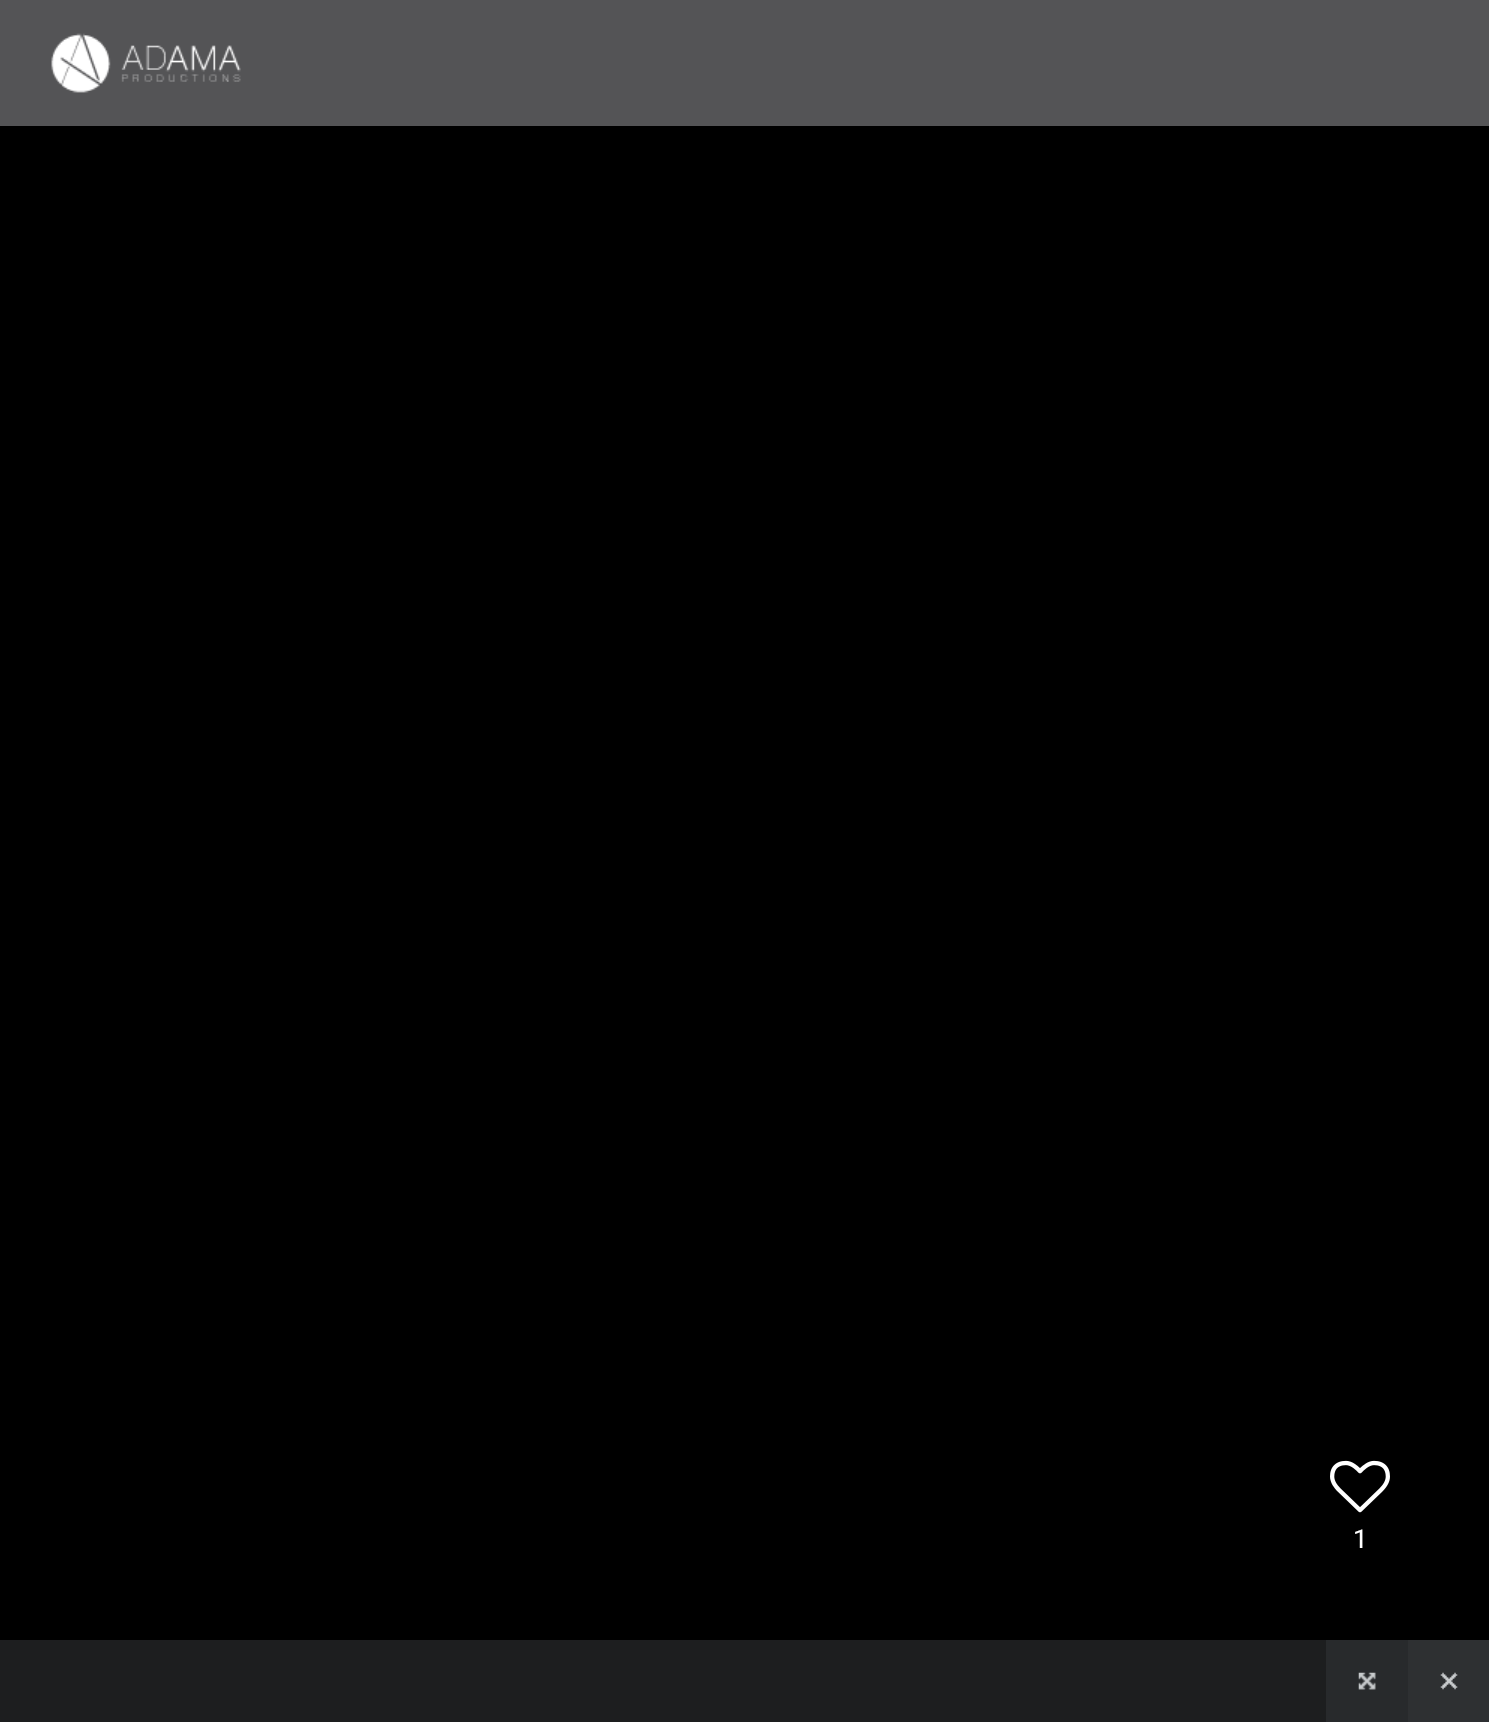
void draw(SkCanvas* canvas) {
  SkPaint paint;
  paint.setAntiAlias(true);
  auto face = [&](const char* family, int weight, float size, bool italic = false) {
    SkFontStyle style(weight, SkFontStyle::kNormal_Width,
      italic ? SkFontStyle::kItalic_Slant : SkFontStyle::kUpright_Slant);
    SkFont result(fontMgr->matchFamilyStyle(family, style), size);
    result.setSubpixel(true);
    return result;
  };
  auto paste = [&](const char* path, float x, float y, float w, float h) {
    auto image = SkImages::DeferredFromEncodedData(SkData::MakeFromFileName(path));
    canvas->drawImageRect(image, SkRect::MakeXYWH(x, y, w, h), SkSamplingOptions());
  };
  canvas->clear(0xff000000);
  paint.setColor(0xff545456);
  canvas->drawRect(SkRect::MakeXYWH(0, 0, 1489, 126), paint);
  paste("img/1.png", 51, 33, 190, 60);
  paste("img/2.png", 1330, 1460, 60, 53);
  paint.setColor(0xff1d1e1f);
  canvas->drawRect(SkRect::MakeXYWH(0, 1640, 1326, 82), paint);
  paint.setColor(0xff2e3032);
  canvas->drawRect(SkRect::MakeXYWH(1408, 1640, 81, 82), paint);
  paste("img/3.png", 1440, 1672, 18, 18);
  paint.setColor(0xff282a2c);
  canvas->drawRect(SkRect::MakeXYWH(1326, 1640, 82, 82), paint);
  paste("img/4.png", 1358, 1672, 18, 18);
  auto f0 = face("Roboto", 400, 26);
  paint.setColor(0xffffffff);
  canvas->drawString("1", 1353, 1548, f0, paint);
}
